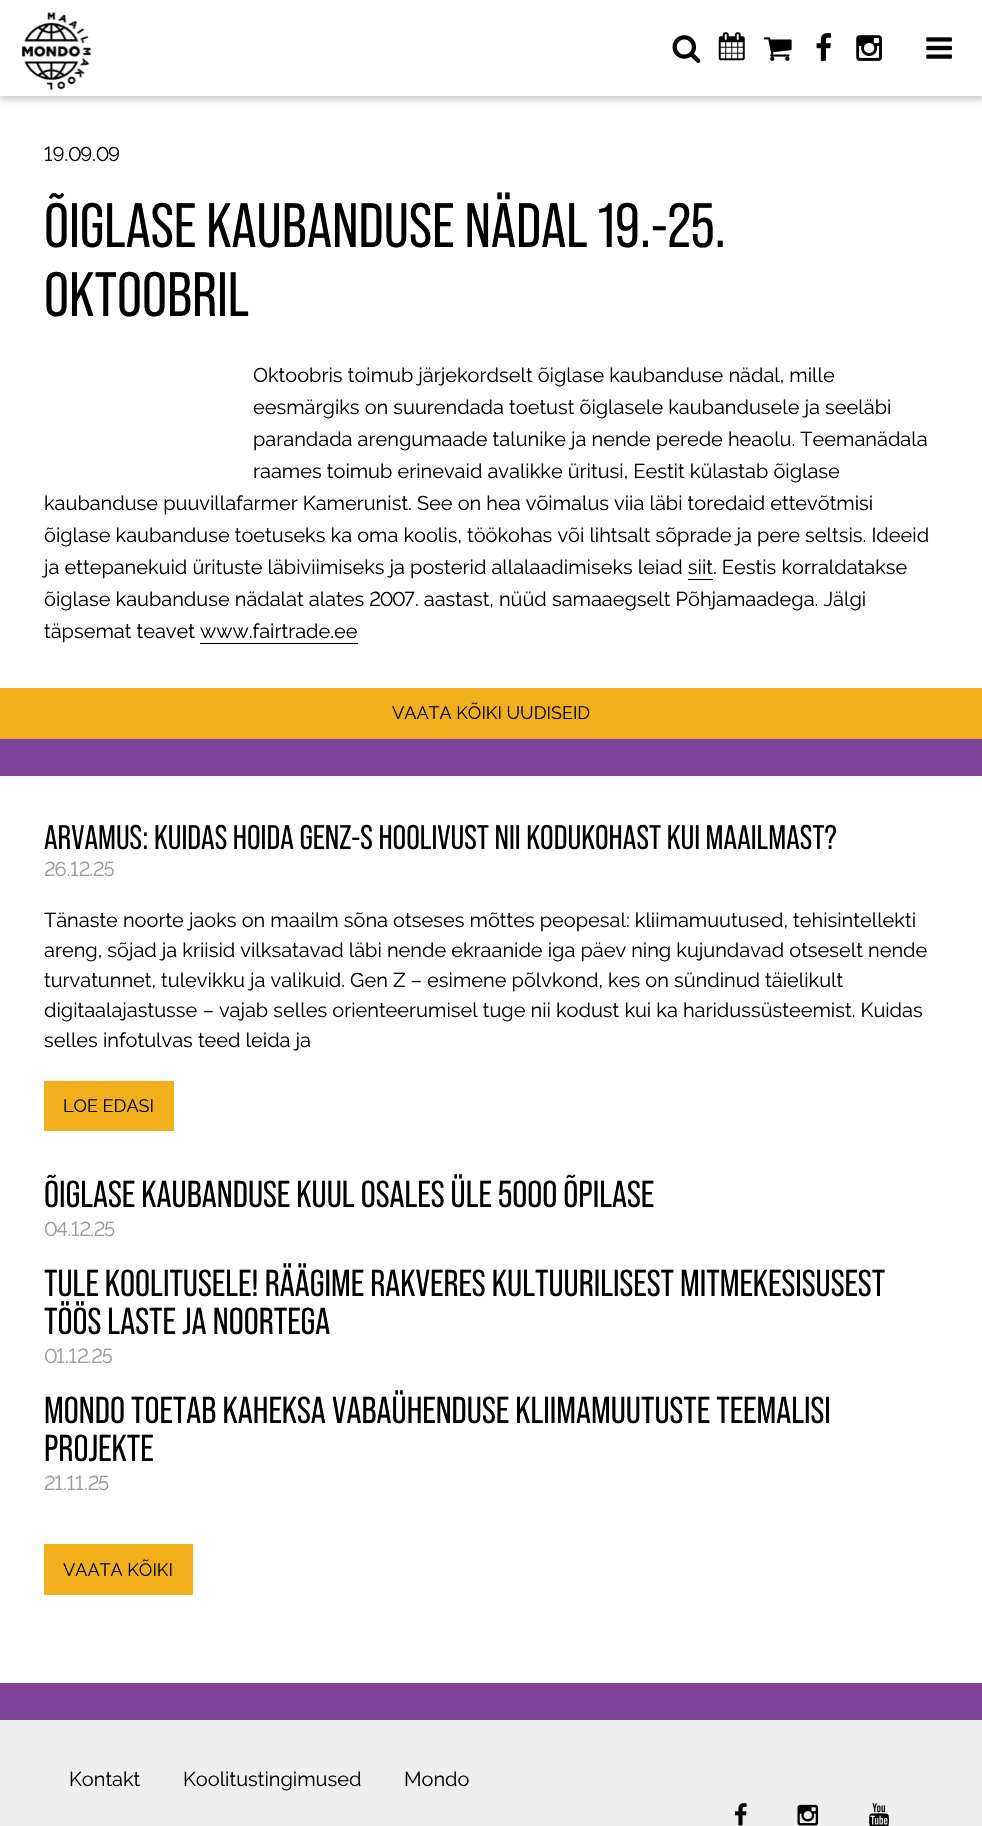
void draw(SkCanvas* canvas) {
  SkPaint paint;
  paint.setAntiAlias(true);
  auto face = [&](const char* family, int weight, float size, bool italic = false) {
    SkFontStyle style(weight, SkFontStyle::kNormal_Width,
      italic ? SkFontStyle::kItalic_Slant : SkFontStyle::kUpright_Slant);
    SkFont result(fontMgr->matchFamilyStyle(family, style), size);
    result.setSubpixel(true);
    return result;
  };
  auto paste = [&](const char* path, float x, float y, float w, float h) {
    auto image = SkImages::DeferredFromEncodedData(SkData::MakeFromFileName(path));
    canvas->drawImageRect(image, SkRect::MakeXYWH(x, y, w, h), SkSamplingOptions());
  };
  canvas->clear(0xff7f4399);
  paint.setColor(0xffffffff);
  canvas->drawRect(SkRect::MakeXYWH(0, 96, 982, 592), paint);
  paint.setColor(0x33000000);
  paint.setMaskFilter(SkMaskFilter::MakeBlur(kNormal_SkBlurStyle, 3));
  canvas->drawRect(SkRect::MakeXYWH(0, 4, 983, 96), paint);
  paint.setMaskFilter(nullptr);
  paint.setColor(0xffffffff);
  canvas->drawRect(SkRect::MakeXYWH(0, 0, 982, 96), paint);
  paste("img/1.png", 22, 12, 69, 78);
  paste("img/2.png", 672, 35, 29, 28);
  paste("img/3.png", 718, 32, 27, 29);
  paste("img/4.png", 763, 37, 29, 24);
  paste("img/5.png", 816, 33, 16, 28);
  paste("img/6.png", 856, 35, 26, 26);
  paste("img/7.png", 926, 37, 26, 22);
  {
    const struct { float x, y, w, h; SkColor color; } items[] = {
      {688, 579, 25, 1, 0xff000000},
      {200, 643, 158, 1, 0xff000000},
      {0, 688, 982, 51, 0xfff2af1d},
      {0, 776, 982, 907, 0xffffffff},
      {44, 1081, 130, 50, 0xfff2af1c},
      {44, 1544, 149, 51, 0xfff2af1c},
      {0, 1720, 982, 106, 0xffeeeeee},
    };
    for (auto [x, y, w, h, color] : items) {
      paint.setColor(color);
      canvas->drawRect(SkRect::MakeXYWH(x, y, w, h), paint);
    }
  }
  paste("img/8.png", 735, 1803, 12, 23);
  paste("img/9.png", 797, 1804, 22, 22);
  paste("img/10.png", 869, 1803, 20, 23);
  auto f0 = face("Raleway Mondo", 400, 20);
  paint.setColor(0xff000000);
  canvas->drawString("19.09.09", 44, 161, f0, paint);
  auto f1 = face("Bebas Neue", 400, 62.5f);
  canvas->drawString("ÕIGLASE KAUBANDUSE NÄDAL 19.-25.", 44, 247, f1, paint);
  canvas->drawString("OKTOOBRIL", 44, 316, f1, paint);
  {
    const struct { const char* s; float x, y; } items[] = {
      {"Oktoobris toimub järjekordselt õiglase kaubanduse nädal, mille", 253, 382},
      {"eesmärgiks on suurendada toetust õiglasele kaubandusele ja seeläbi", 253, 414},
      {"parandada arengumaade talunike ja nende perede heaolu. Teemanädala", 253, 446},
      {"raames toimub erinevaid avalikke üritusi, Eestit külastab õiglase", 253, 478},
      {"kaubanduse puuvillafarmer Kamerunist. See on hea võimalus viia läbi toredaid ettevõtmisi", 44, 510},
      {"õiglase kaubanduse toetuseks ka oma koolis, töökohas või lihtsalt sõprade ja pere seltsis. Ideeid", 44, 542},
      {"ja ettepanekuid ürituste läbiviimiseks ja posterid allalaadimiseks leiad siit. Eestis korraldatakse", 44, 574},
      {"õiglase kaubanduse nädalat alates 2007. aastast, nüüd samaaegselt Põhjamaadega. Jälgi", 44, 606},
      {"täpsemat teavet www.fairtrade.ee", 44, 638},
    };
    for (auto [s, x, y] : items) {
      canvas->drawString(s, x, y, f0, paint);
    }
  }
  auto f2 = face("Raleway Mondo", 400, 18);
  canvas->drawString("VAATA KÕIKI UUDISEID", 392, 719, f2, paint);
  auto f3 = face("Bebas Neue", 400, 34);
  canvas->drawString("ARVAMUS: KUIDAS HOIDA GENZ-S HOOLIVUST NII KODUKOHAST KUI MAAILMAST?", 44, 849, f3, paint);
  paint.setColor(0xff999999);
  canvas->drawString("26.12.25", 44, 876, f0, paint);
  paint.setColor(0xff000000);
  {
    const struct { const char* s; float x, y; } items[] = {
      {"Tänaste noorte jaoks on maailm sõna otseses mõttes peopesal: kliimamuutused, tehisintellekti", 44, 927},
      {"areng, sõjad ja kriisid vilksatavad läbi nende ekraanide iga päev ning kujundavad otseselt nende", 44, 957},
      {"turvatunnet, tulevikku ja valikuid. Gen Z – esimene põlvkond, kes on sündinud täielikult", 44, 987},
      {"digitaalajastusse – vajab selles orienteerumisel tuge nii kodust kui ka haridussüsteemist. Kuidas", 44, 1017},
      {"selles infotulvas teed leida ja", 44, 1047},
    };
    for (auto [s, x, y] : items) {
      canvas->drawString(s, x, y, f0, paint);
    }
  }
  canvas->drawString("LOE EDASI", 63, 1112, f2, paint);
  auto f4 = face("Bebas Neue", 400, 37.5f);
  canvas->drawString("ÕIGLASE KAUBANDUSE KUUL OSALES ÜLE 5000 ÕPILASE", 44, 1207, f4, paint);
  paint.setColor(0xff999999);
  canvas->drawString("04.12.25", 44, 1236, f0, paint);
  paint.setColor(0xff000000);
  canvas->drawString("TULE KOOLITUSELE! RÄÄGIME RAKVERES KULTUURILISEST MITMEKESISUSEST", 44, 1296, f4, paint);
  canvas->drawString("TÖÖS LASTE JA NOORTEGA", 44, 1334, f4, paint);
  paint.setColor(0xff999999);
  canvas->drawString("01.12.25", 44, 1363, f0, paint);
  paint.setColor(0xff000000);
  canvas->drawString("MONDO TOETAB KAHEKSA VABAÜHENDUSE KLIIMAMUUTUSTE TEEMALISI", 44, 1423, f4, paint);
  canvas->drawString("PROJEKTE", 44, 1461, f4, paint);
  paint.setColor(0xff999999);
  canvas->drawString("21.11.25", 44, 1490, f0, paint);
  paint.setColor(0xff000000);
  canvas->drawString("VAATA KÕIKI", 63, 1576, f2, paint);
  {
    const struct { const char* s; float x, y; } items[] = {
      {"Kontakt", 69, 1786},
      {"Koolitustingimused", 183, 1786},
      {"Mondo", 404, 1786},
    };
    for (auto [s, x, y] : items) {
      canvas->drawString(s, x, y, f0, paint);
    }
  }
}
